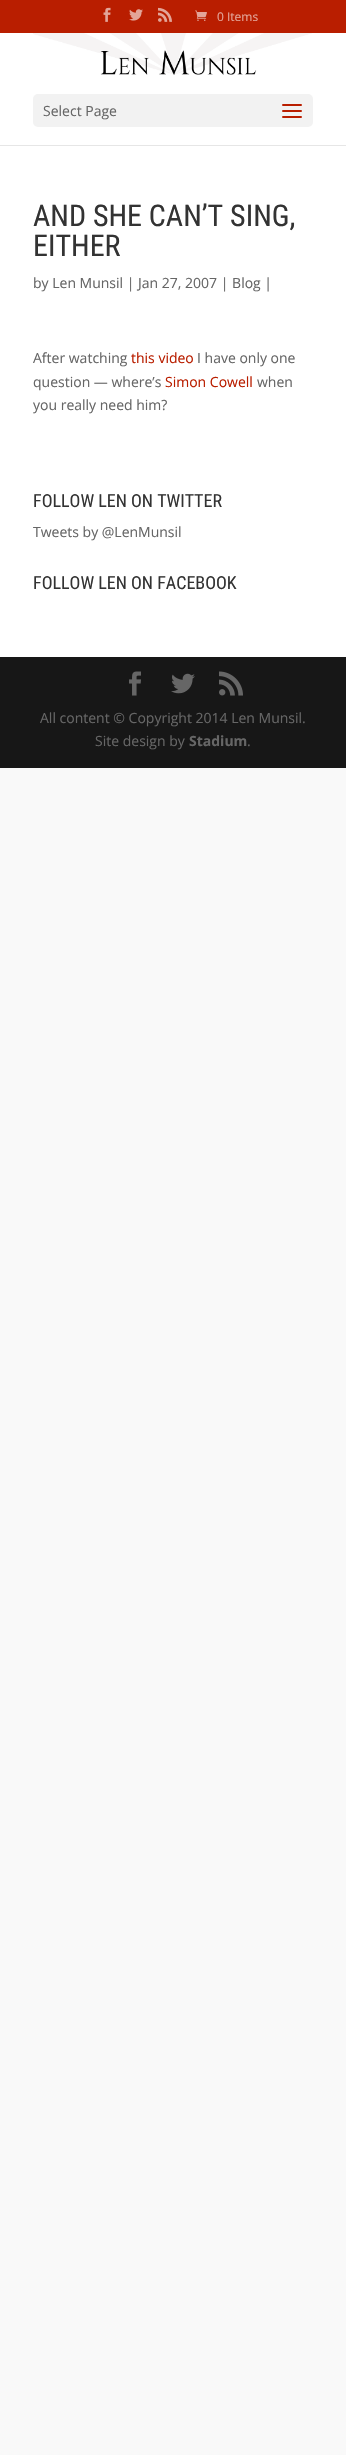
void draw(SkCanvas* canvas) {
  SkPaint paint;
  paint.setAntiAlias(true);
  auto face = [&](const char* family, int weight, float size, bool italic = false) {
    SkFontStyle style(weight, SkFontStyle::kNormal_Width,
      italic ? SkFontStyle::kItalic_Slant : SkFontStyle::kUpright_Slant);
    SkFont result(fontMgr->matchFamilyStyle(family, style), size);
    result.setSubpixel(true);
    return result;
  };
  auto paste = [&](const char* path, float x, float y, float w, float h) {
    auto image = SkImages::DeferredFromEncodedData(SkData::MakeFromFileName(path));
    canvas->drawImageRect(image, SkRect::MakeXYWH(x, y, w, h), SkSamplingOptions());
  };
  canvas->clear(0xfff9f9f9);
  paint.setColor(0xffb91e00);
  canvas->drawRect(SkRect::MakeXYWH(0, 0, 346, 33), paint);
  paste("img/1.png", 103, 7, 8, 15);
  paste("img/2.png", 129, 9, 14, 12);
  paste("img/3.png", 158, 7, 14, 15);
  paste("img/4.png", 195, 10, 12, 11);
  paint.setColor(0xffe6e6e6);
  canvas->drawRect(SkRect::MakeXYWH(0, 145, 346, 1), paint);
  paint.setColor(0xffffffff);
  canvas->drawRect(SkRect::MakeXYWH(0, 33, 346, 112), paint);
  paste("img/5.png", 33, 33, 279, 42);
  paint.setColor(0xfff2f2f2);
  canvas->drawRoundRect(SkRect::MakeXYWH(33, 94, 280, 33), 5, 5, paint);
  paste("img/6.png", 282, 104, 20, 14);
  paint.setColor(0xffffffff);
  canvas->drawRect(SkRect::MakeXYWH(0, 146, 346, 511), paint);
  paint.setColor(0xff171717);
  canvas->drawRect(SkRect::MakeXYWH(0, 657, 346, 111), paint);
  paste("img/7.png", 129, 671, 12, 25);
  paste("img/8.png", 171, 673, 24, 21);
  paste("img/9.png", 219, 671, 24, 25);
  auto f0 = face("Open Sans", 400, 12);
  paint.setColor(0xffe3a599);
  canvas->drawString("0 Items", 217, 21, f0, paint);
  auto f1 = face("Open Sans", 400, 14);
  paint.setColor(0xff666666);
  canvas->drawString("Select Page", 43, 116, f1, paint);
  auto f2 = face("Roboto Condensed", 400, 30);
  paint.setColor(0xff333333);
  canvas->drawString("AND SHE CAN’T SING,", 33, 226, f2, paint);
  canvas->drawString("EITHER", 33, 256, f2, paint);
  paint.setColor(0xff666666);
  canvas->drawString("by Len Munsil | Jan 27, 2007 | Blog |", 33, 288, f1, paint);
  canvas->drawString("After watching", 33, 363, f1, paint);
  paint.setColor(0xffb91e00);
  canvas->drawString("this video", 131, 363, f1, paint);
  paint.setColor(0xff666666);
  canvas->drawString("I have only one", 197, 363, f1, paint);
  canvas->drawString("question — where’s", 33, 387, f1, paint);
  paint.setColor(0xffb91e00);
  canvas->drawString("Simon Cowell", 165, 387, f1, paint);
  paint.setColor(0xff666666);
  canvas->drawString("when", 257, 387, f1, paint);
  canvas->drawString("you really need him?", 33, 410, f1, paint);
  auto f3 = face("Roboto Condensed", 400, 18);
  paint.setColor(0xff333333);
  canvas->drawString("FOLLOW LEN ON TWITTER", 33, 507, f3, paint);
  paint.setColor(0xff666666);
  canvas->drawString("Tweets by @LenMunsil", 33, 537, f1, paint);
  paint.setColor(0xff333333);
  canvas->drawString("FOLLOW LEN ON FACEBOOK", 33, 589, f3, paint);
  paint.setColor(0xff666666);
  canvas->drawString("All content © Copyright 2014 Len Munsil.", 40, 723, f1, paint);
  canvas->drawString("Site design by", 95, 746, f1, paint);
  auto f4 = face("Open Sans", 700, 14);
  canvas->drawString("Stadium", 189, 746, f4, paint);
  canvas->drawString(".", 247, 746, f1, paint);
}
